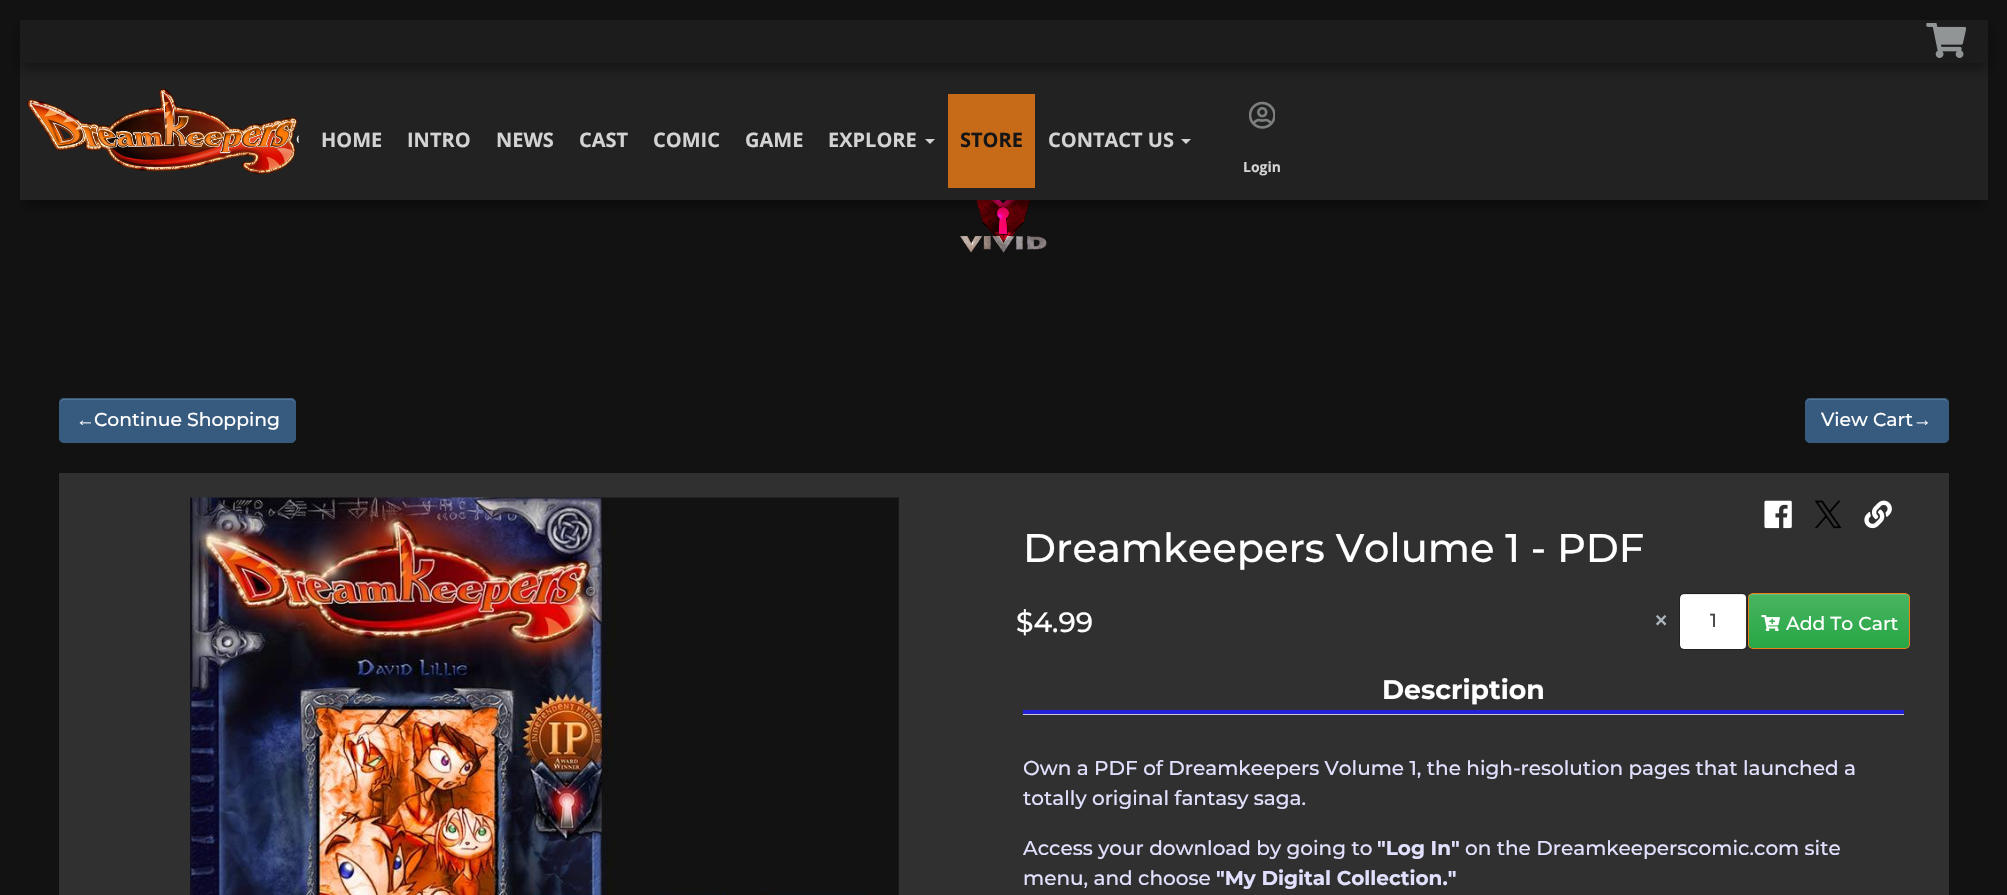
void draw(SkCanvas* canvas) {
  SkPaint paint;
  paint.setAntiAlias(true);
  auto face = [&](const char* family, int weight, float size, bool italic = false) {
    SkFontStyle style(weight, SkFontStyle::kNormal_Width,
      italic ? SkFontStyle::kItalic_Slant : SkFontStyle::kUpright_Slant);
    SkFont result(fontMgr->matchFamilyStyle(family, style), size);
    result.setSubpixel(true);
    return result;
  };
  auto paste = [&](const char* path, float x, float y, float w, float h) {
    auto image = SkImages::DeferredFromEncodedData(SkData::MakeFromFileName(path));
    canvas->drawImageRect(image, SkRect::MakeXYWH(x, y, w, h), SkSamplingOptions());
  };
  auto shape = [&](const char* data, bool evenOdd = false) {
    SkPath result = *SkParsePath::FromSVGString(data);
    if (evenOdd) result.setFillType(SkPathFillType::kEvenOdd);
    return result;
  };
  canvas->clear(0xff121212);
  paint.setColor(0xff222222);
  canvas->drawRect(SkRect::MakeXYWH(20, 20, 1968, 180), paint);
  canvas->save();
  canvas->clipPath(shape("M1 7H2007V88H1ZM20 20H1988V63H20Z", true), true);
  paint.setColor(0x66000000);
  paint.setMaskFilter(SkMaskFilter::MakeBlur(kNormal_SkBlurStyle, 6));
  canvas->drawRect(SkRect::MakeXYWH(20, 26, 1968, 43), paint);
  paint.setMaskFilter(nullptr);
  canvas->restore();
  paste("img/4.png", 960, 200, 87, 53);
  canvas->save();
  canvas->clipPath(shape("M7 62H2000V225H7ZM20 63H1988V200H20Z", true), true);
  paint.setMaskFilter(SkMaskFilter::MakeBlur(kNormal_SkBlurStyle, 6));
  canvas->drawRect(SkRect::MakeXYWH(26, 81, 1955, 125), paint);
  paint.setMaskFilter(nullptr);
  canvas->restore();
  paint.setColor(0x33000000);
  canvas->drawRect(SkRect::MakeXYWH(20, 20, 1968, 43), paint);
  paste("img/1.png", 1926, 23, 40, 35);
  paste("img/2.png", 27, 88, 272, 87);
  paint.setColor(0xffd3d3d3);
  canvas->drawPath(shape("M925 139H935L930 144Z"), paint);
  paint.setColor(0xffc86b19);
  canvas->drawRect(SkRect::MakeXYWH(948, 94, 87, 94), paint);
  paint.setColor(0xffd3d3d3);
  canvas->drawPath(shape("M1181 139H1191L1186 144Z"), paint);
  paste("img/3.png", 1249, 101, 26, 28);
  paint.setColor(0xff375a7f);
  canvas->drawRoundRect(SkRect::MakeXYWH(59, 398, 237, 45), 5, 5, paint);
  paint.setColor(0xff557392);
  canvas->drawPath(shape("M64 400H291C293 400 295 402 295 404C295 401 294 399 291 399H64C61 399 60 401 60 404C60 402 62 400 64 400Z"), paint);
  paint.setStroke(true);
  paint.setStrokeWidth(1);
  paint.setColor(0xff375a7f);
  canvas->drawRoundRect(SkRect::MakeXYWH(59.5f, 398.5f, 236, 44), 4.5f, 4.5f, paint);
  paint.setStroke(false);
  canvas->drawRoundRect(SkRect::MakeXYWH(1805, 398, 144, 45), 5, 5, paint);
  paint.setColor(0xff557392);
  canvas->drawPath(shape("M1810 400H1944C1946 400 1948 402 1948 404V403C1948 401 1946 399 1944 399H1810C1808 399 1806 401 1806 403V404C1806 402 1808 400 1810 400Z"), paint);
  paint.setStroke(true);
  paint.setColor(0xff375a7f);
  canvas->drawRoundRect(SkRect::MakeXYWH(1805.5f, 398.5f, 143, 44), 4.5f, 4.5f, paint);
  paint.setStroke(false);
  paint.setColor(0xff303030);
  canvas->drawRect(SkRect::MakeXYWH(59, 473, 1890, 422), paint);
  paste("img/5.png", 190, 497, 709, 398);
  paste("img/6.png", 1764, 500, 28, 29);
  paste("img/7.png", 1815, 500, 27, 29);
  paste("img/8.png", 1864, 500, 28, 29);
  paint.setColor(0xffffffff);
  canvas->drawRoundRect(SkRect::MakeXYWH(1680, 594, 66, 55), 4, 4, paint);
  paint.setColor(0x12000000);
  canvas->drawPath(shape("M1684 595H1742C1745 595 1746 597 1746 599C1746 592 1737 594 1732 594H1694C1689 594 1680 592 1680 599C1680 597 1682 595 1684 595Z"), paint);
  paint.setStroke(true);
  paint.setColor(0xff222222);
  canvas->drawRoundRect(SkRect::MakeXYWH(1679.5f, 593.5f, 68, 56), 4.5f, 4.5f, paint);
  canvas->save();
  canvas->clipPath(shape("M1753 593H1905C1908 593 1910 595 1910 598V644C1910 647 1908 649 1905 649H1753C1750 649 1748 647 1748 644V598C1748 595 1750 593 1753 593Z"), true);
  paint.setStroke(false);
  {
    const SkColor colors[] = {0xff48b461, 0xff28a745};
    const float stops[] = {0, 1};
    const SkPoint ends[] = {{1829, 594}, {1829, 648}};
    paint.setShader(SkGradientShader::MakeLinear(ends, colors, stops, 2, SkTileMode::kClamp));
    paint.setAlpha(255);
  }
  canvas->drawRect(SkRect::MakeXYWH(1748, 594, 162, 54), paint);
  canvas->restore();
  paint.setShader(nullptr);
  paint.setColor(0xff63bf79);
  canvas->drawPath(shape("M1752 595H1905C1907 595 1909 597 1909 599C1909 597 1908 595 1906 594H1752C1750 595 1749 597 1749 599C1749 597 1750 595 1752 595Z"), paint);
  paint.setStroke(true);
  paint.setColor(0xfff27d17);
  canvas->drawRoundRect(SkRect::MakeXYWH(1748.5f, 593.5f, 161, 55), 4.5f, 4.5f, paint);
  paste("img/9.png", 1761, 615, 19, 16);
  paint.setStroke(false);
  paint.setColor(0xffcccccc);
  canvas->drawRect(SkRect::MakeXYWH(1023, 714, 881, 1), paint);
  paint.setColor(0xff2222dd);
  canvas->drawRect(SkRect::MakeXYWH(1023, 710, 881, 4), paint);
  auto f0 = face("Open Sans", 700, 20);
  paint.setColor(0xffd3d3d3);
  {
    const struct { const char* s; float x, y; } items[] = {
      {"HOME", 321, 147},
      {"INTRO", 407, 147},
      {"NEWS", 496, 147},
      {"CAST", 579, 147},
      {"COMIC", 653, 147},
      {"GAME", 745, 147},
      {"EXPLORE", 828, 147},
    };
    for (auto [s, x, y] : items) {
      canvas->drawString(s, x, y, f0, paint);
    }
  }
  paint.setColor(0xff151515);
  canvas->drawString("STORE", 960, 147, f0, paint);
  paint.setColor(0xffd3d3d3);
  canvas->drawString("CONTACT US", 1048, 147, f0, paint);
  auto f1 = face("Open Sans", 700, 14);
  canvas->drawString("Login", 1243, 172, f1, paint);
  auto f2 = face("Liberation Sans", 400, 18.75f);
  paint.setColor(0xffffffff);
  canvas->drawString("←", 76, 426, f2, paint);
  auto f3 = face("Montserrat", 500, 18.75f);
  canvas->drawString("Continue Shopping", 94, 426, f3, paint);
  canvas->drawString("View Cart", 1821, 426, f3, paint);
  canvas->drawString("→", 1913, 426, f2, paint);
  auto f4 = face("Montserrat", 500, 40);
  canvas->drawString("Dreamkeepers Volume 1 - PDF", 1023, 562, f4, paint);
  auto f5 = face("Montserrat", 500, 28);
  canvas->drawString("$4.99", 1016, 632, f5, paint);
  paint.setColor(0xffadb5bd);
  canvas->drawString("×", 1653, 630, f5, paint);
  paint.setColor(0xff444444);
  canvas->drawString("1", 1710, 627, f3, paint);
  paint.setColor(0xffffffff);
  canvas->drawString("Add To Cart", 1786, 630, f3, paint);
  auto f6 = face("Montserrat", 700, 26.75f);
  canvas->drawString("Description", 1382, 699, f6, paint);
  auto f7 = face("Montserrat", 500, 20);
  paint.setColor(0xffe1e1ff);
  {
    const struct { const char* s; float x, y; } items[] = {
      {"Own a PDF of Dreamkeepers Volume 1, the high-resolution pages that launched a", 1023, 775},
      {"totally original fantasy saga.", 1023, 805},
      {"Access your download by going to", 1023, 855},
    };
    for (auto [s, x, y] : items) {
      canvas->drawString(s, x, y, f7, paint);
    }
  }
  auto f8 = face("Montserrat", 700, 20);
  canvas->drawString("\"Log In\"", 1377, 855, f8, paint);
  canvas->drawString("on the Dreamkeeperscomic.com site", 1465, 855, f7, paint);
  canvas->drawString("menu, and choose", 1023, 885, f7, paint);
  canvas->drawString("\"My Digital Collection.\"", 1216, 885, f8, paint);
}
